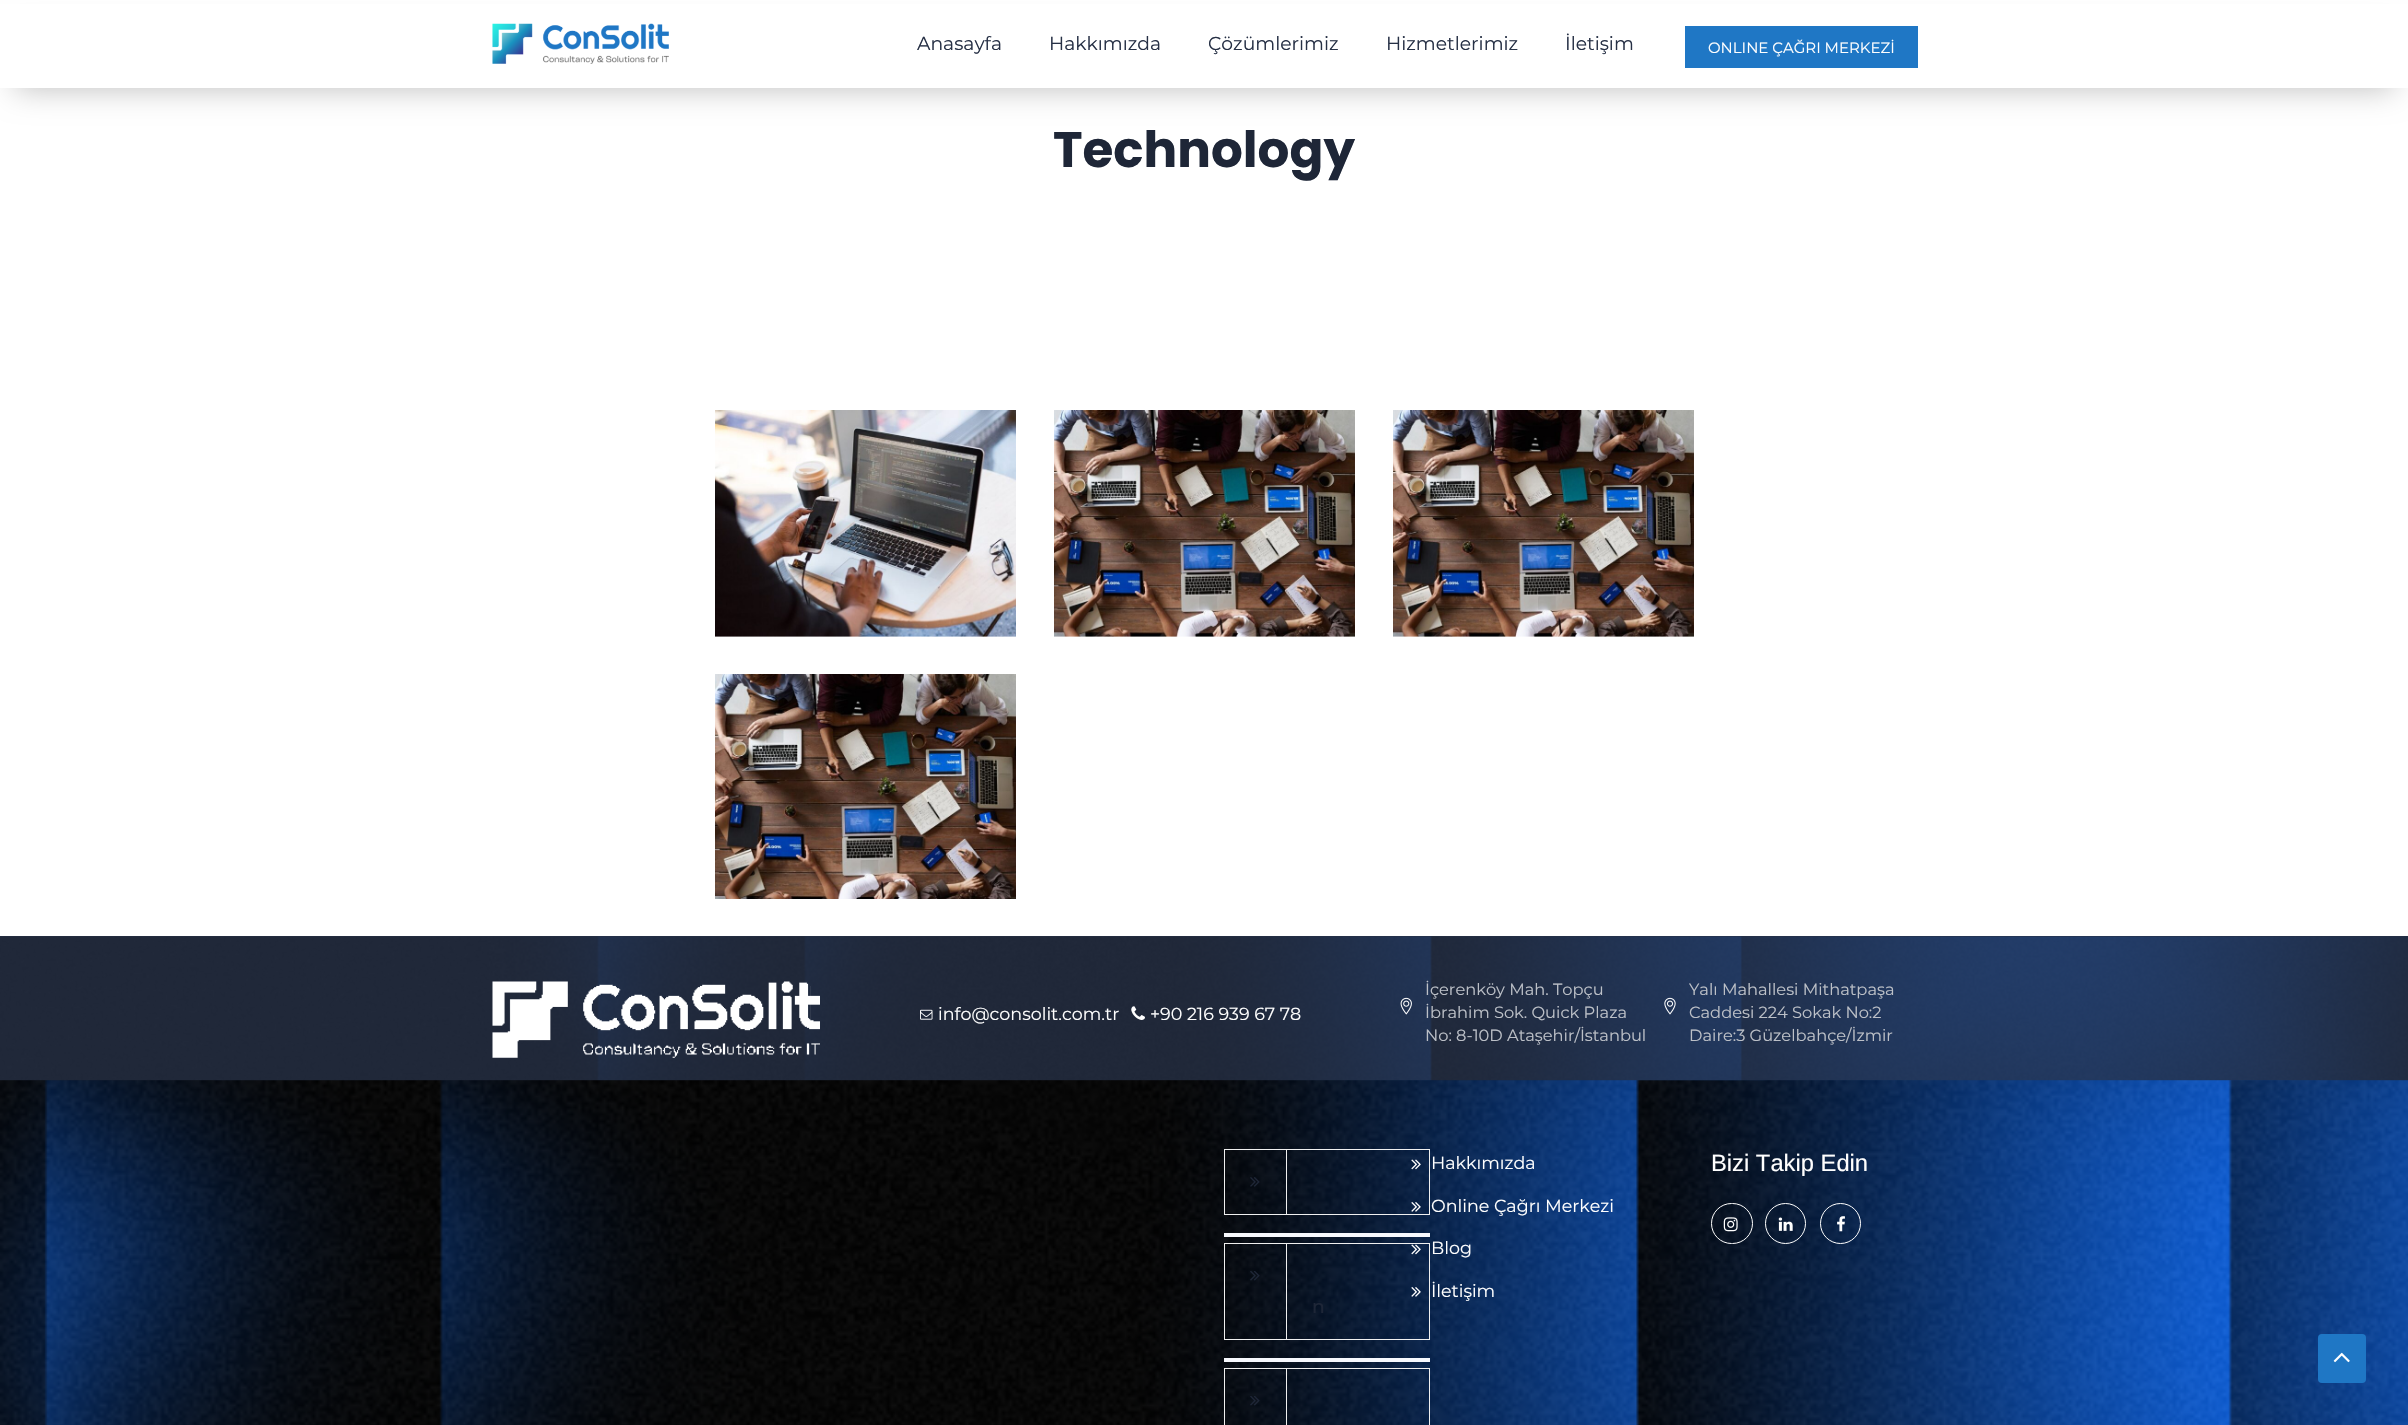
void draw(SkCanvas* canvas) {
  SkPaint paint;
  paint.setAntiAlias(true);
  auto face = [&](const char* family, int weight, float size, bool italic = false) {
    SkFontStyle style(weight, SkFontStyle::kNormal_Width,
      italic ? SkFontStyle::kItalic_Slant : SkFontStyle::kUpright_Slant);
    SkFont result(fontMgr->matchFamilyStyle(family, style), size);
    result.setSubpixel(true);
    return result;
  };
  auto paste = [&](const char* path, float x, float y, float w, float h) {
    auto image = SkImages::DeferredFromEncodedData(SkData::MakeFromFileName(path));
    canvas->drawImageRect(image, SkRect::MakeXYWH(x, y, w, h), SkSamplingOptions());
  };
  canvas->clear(0xffffffff);
  paint.setColor(0x40000000);
  paint.setMaskFilter(SkMaskFilter::MakeBlur(kNormal_SkBlurStyle, 15.5f));
  canvas->drawRect(SkRect::MakeXYWH(15, 31, 2379, 58), paint);
  paint.setMaskFilter(nullptr);
  paint.setColor(0xffffffff);
  canvas->drawRect(SkRect::MakeXYWH(0, 4, 2408, 84), paint);
  paste("img/1.png", 492, 23, 177, 41);
  paint.setColor(0xff1f77c5);
  canvas->drawRect(SkRect::MakeXYWH(1685, 26, 233, 42), paint);
  paste("img/2.png", 715, 410, 301, 227);
  paste("img/3.png", 1054, 410, 301, 227);
  paste("img/4.png", 1393, 410, 301, 227);
  paste("img/5.png", 715, 674, 301, 225);
  paste("img/6.png", 0, 1080, 2408, 1);
  paint.setColor(0xff263045);
  canvas->drawRect(SkRect::MakeXYWH(0, 936, 2408, 1), paint);
  paste("img/7.png", 0, 936, 2408, 145);
  paint.setColor(0xcc263045);
  canvas->drawRect(SkRect::MakeXYWH(0, 936, 2408, 144), paint);
  paste("img/8.png", 492, 981, 328, 77);
  paint.setColor(0x12ffffff);
  canvas->drawRect(SkRect::MakeXYWH(810, 986, 1, 37), paint);
  paste("img/9.png", 920, 1009, 13, 11);
  paste("img/10.png", 1131, 1006, 14, 14);
  paste("img/11.png", 1400, 997, 12, 18);
  paste("img/12.png", 1664, 997, 12, 18);
  paste("img/13.png", 0, 1080, 2408, 345);
  paste("img/14.png", 1411, 1159, 10, 11);
  paste("img/15.png", 1411, 1202, 10, 10);
  paste("img/16.png", 1411, 1244, 10, 11);
  paste("img/17.png", 1411, 1287, 10, 10);
  paint.setStroke(true);
  paint.setStrokeWidth(1);
  paint.setColor(0xffffffff);
  canvas->drawRoundRect(SkRect::MakeXYWH(1711.5f, 1203.5f, 41, 40), 20, 20, paint);
  paste("img/18.png", 1723, 1217, 15, 15);
  canvas->drawCircle(1785.5f, 1223.5f, 20, paint);
  paste("img/19.png", 1778, 1217, 15, 14);
  canvas->drawCircle(1840.5f, 1223.5f, 20, paint);
  paste("img/20.png", 1837, 1216, 8, 16);
  paint.setStroke(false);
  paint.setColor(0xfff7f9fe);
  canvas->drawRect(SkRect::MakeXYWH(1224, 1233, 206, 4), paint);
  paint.setStroke(true);
  paint.setColor(0xfff0f0f0);
  canvas->drawRect(SkRect::MakeXYWH(1224.5f, 1149.5f, 205, 65), paint);
  paint.setStroke(false);
  canvas->drawRect(SkRect::MakeXYWH(1286, 1150, 1, 64), paint);
  paste("img/21.png", 1250, 1177, 10, 10);
  paint.setColor(0xfff7f9fe);
  canvas->drawRect(SkRect::MakeXYWH(1224, 1358, 206, 4), paint);
  paint.setStroke(true);
  paint.setColor(0xfff0f0f0);
  canvas->drawRect(SkRect::MakeXYWH(1224.5f, 1243.5f, 205, 96), paint);
  paint.setStroke(false);
  canvas->drawRect(SkRect::MakeXYWH(1286, 1244, 1, 95), paint);
  paste("img/22.png", 1250, 1271, 10, 10);
  paint.setStroke(true);
  canvas->drawRect(SkRect::MakeXYWH(1224.5f, 1368.5f, 205, 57), paint);
  paint.setStroke(false);
  canvas->drawRect(SkRect::MakeXYWH(1286, 1369, 1, 56), paint);
  paste("img/23.png", 1250, 1396, 10, 10);
  paint.setColor(0xff1f77c5);
  canvas->drawRoundRect(SkRect::MakeXYWH(2318, 1334, 48, 49), 4, 4, paint);
  paste("img/24.png", 2333, 1352, 17, 11);
  auto f0 = face("Montserrat", 400, 18.75f);
  paint.setColor(0xff263045);
  {
    const struct { const char* s; float x, y; } items[] = {
      {"Anasayfa", 917, 50},
      {"Hakkımızda", 1049, 50},
      {"Çözümlerimiz", 1208, 50},
      {"Hizmetlerimiz", 1386, 50},
      {"İletişim", 1565, 50},
    };
    for (auto [s, x, y] : items) {
      canvas->drawString(s, x, y, f0, paint);
    }
  }
  auto f1 = face("Montserrat", 400, 15);
  paint.setColor(0xffffffff);
  canvas->drawString("ONLINE ÇAĞRI MERKEZİ", 1708, 53, f1, paint);
  auto f2 = face("Poppins", 700, 50);
  paint.setColor(0xff1e2637);
  canvas->drawString("Technology", 1053, 167, f2, paint);
  auto f3 = face("Montserrat", 400, 17.5f);
  paint.setColor(0xffffffff);
  canvas->drawString("info@consolit.com.tr", 938, 1020, f3, paint);
  canvas->drawString("+90 216 939 67 78", 1150, 1020, f3, paint);
  auto f4 = face("Montserrat", 400, 16.25f);
  paint.setColor(0xffbcc0c7);
  {
    const struct { const char* s; float x, y; } items[] = {
      {"İçerenköy Mah. Topçu", 1425, 995},
      {"İbrahim Sok. Quick Plaza", 1425, 1018},
      {"No: 8-10D Ataşehir/İstanbul", 1425, 1041},
      {"Yalı Mahallesi Mithatpaşa", 1689, 995},
      {"Caddesi 224 Sokak No:2", 1689, 1018},
      {"Daire:3 Güzelbahçe/İzmir", 1689, 1041},
    };
    for (auto [s, x, y] : items) {
      canvas->drawString(s, x, y, f4, paint);
    }
  }
  paint.setColor(0xffffffff);
  {
    const struct { const char* s; float x, y; } items[] = {
      {"Hakkımızda", 1431, 1169},
      {"Online Çağrı Merkezi", 1431, 1212},
      {"Blog", 1431, 1254},
      {"İletişim", 1431, 1297},
    };
    for (auto [s, x, y] : items) {
      canvas->drawString(s, x, y, f3, paint);
    }
  }
  auto f5 = face("Liberation Sans", 400, 23.75f);
  canvas->drawString("Bizi Takip Edin", 1711, 1171, f5, paint);
  auto f6 = face("Montserrat", 500, 18.75f);
  paint.setColor(0xff1e2637);
  canvas->drawString("n", 1312, 1313, f6, paint);
}
